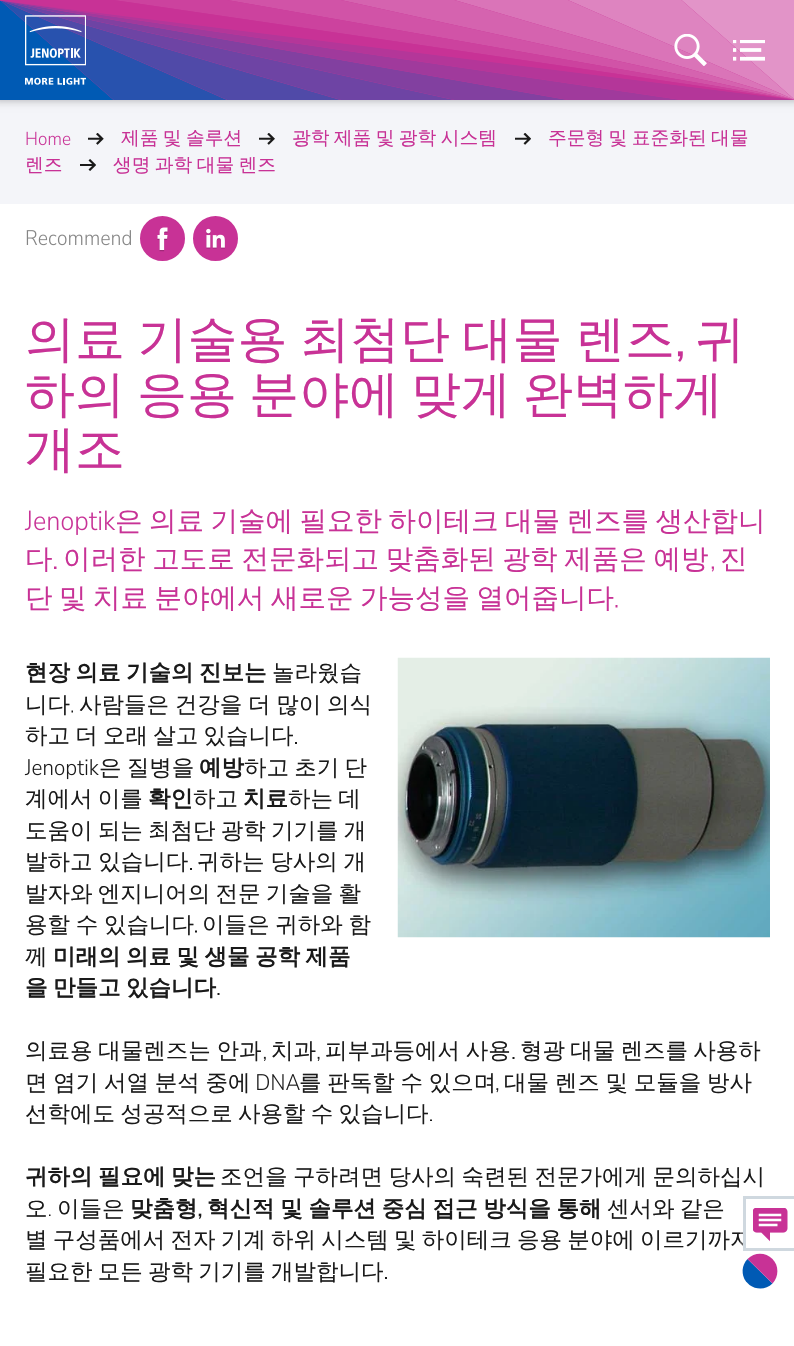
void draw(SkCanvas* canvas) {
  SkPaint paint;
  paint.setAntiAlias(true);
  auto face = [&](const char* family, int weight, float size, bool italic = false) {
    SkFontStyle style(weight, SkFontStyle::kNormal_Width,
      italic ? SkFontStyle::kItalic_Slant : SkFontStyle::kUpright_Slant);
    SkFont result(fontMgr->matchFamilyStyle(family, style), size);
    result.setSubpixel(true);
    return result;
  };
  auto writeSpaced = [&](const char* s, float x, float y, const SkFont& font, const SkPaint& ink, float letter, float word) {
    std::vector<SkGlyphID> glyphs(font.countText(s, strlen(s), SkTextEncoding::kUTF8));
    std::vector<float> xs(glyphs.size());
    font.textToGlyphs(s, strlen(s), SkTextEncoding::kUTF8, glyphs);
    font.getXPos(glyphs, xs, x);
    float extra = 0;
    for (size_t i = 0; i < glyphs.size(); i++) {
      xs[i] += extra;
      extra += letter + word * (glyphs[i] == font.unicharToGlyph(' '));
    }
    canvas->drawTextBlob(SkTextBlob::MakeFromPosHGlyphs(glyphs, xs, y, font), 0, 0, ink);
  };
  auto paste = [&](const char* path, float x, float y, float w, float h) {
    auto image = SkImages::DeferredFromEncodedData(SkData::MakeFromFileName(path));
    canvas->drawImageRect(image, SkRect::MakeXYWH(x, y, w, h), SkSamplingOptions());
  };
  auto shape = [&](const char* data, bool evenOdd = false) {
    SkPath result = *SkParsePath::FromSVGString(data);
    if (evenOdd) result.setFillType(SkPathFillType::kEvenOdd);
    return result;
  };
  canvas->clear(0xffffffff);
  paint.setColor(0xfff4f5f9);
  canvas->drawRect(SkRect::MakeXYWH(0, 100, 794, 104), paint);
  paint.setColor(0x4d000000);
  paint.setMaskFilter(SkMaskFilter::MakeBlur(kNormal_SkBlurStyle, 4.5f));
  canvas->drawRect(SkRect::MakeXYWH(-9, -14, 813, 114), paint);
  paint.setMaskFilter(nullptr);
  paste("img/1.png", 0, 0, 794, 100);
  paste("img/2.png", 25, 15, 61, 70);
  paste("img/3.png", 674, 34, 33, 32);
  paste("img/4.png", 733, 40, 32, 21);
  paste("img/5.png", 26, 131, 45, 15);
  paste("img/6.png", 88, 133, 16, 12);
  paste("img/7.png", 259, 133, 16, 12);
  paste("img/8.png", 515, 133, 16, 12);
  paste("img/9.png", 80, 159, 16, 12);
  paste("img/10.png", 26, 230, 105, 16);
  paint.setColor(0xffc83296);
  canvas->drawCircle(162.5f, 238.5f, 21, paint);
  paint.setStroke(true);
  paint.setStrokeWidth(3);
  canvas->drawCircle(162.5f, 238.5f, 21, paint);
  paste("img/11.png", 157, 227, 11, 25);
  paint.setStroke(false);
  canvas->drawCircle(215.5f, 238.5f, 21, paint);
  paint.setStroke(true);
  canvas->drawCircle(215.5f, 238.5f, 21, paint);
  paste("img/12.png", 206, 228, 19, 21);
  paste("img/13.png", 677, 351, 6, 11);
  paste("img/14.png", 24, 510, 92, 25);
  paint.setStroke(false);
  canvas->drawPath(shape("M54 569V566.5H56.5V569Z"), paint);
  paste("img/15.png", 711, 566, 3, 6);
  canvas->drawPath(shape("M615.5 607.5V605H617.5V607.5Z"), paint);
  paste("img/16.png", 397, 657, 373, 281);
  paint.setColor(0xff1a1a1a);
  canvas->drawPath(shape("M71.5 712.5V710.5H73V712.5Z"), paint);
  canvas->drawPath(shape("M295 744V742H297V744Z"), paint);
  paste("img/17.png", 24, 759, 75, 21);
  canvas->drawPath(shape("M190 870V868H192V870Z"), paint);
  canvas->drawPath(shape("M195 932.5V930.5H197V932.5Z"), paint);
  canvas->drawPath(shape("M217.5 995V993H219.5V995Z"), paint);
  paste("img/18.png", 263, 1056, 3, 5);
  paste("img/19.png", 317, 1056, 3, 5);
  canvas->drawPath(shape("M512.5 1059V1057H514.5V1059Z"), paint);
  paste("img/20.png", 257, 1074, 43, 16);
  paste("img/21.png", 496, 1088, 3, 5);
  canvas->drawPath(shape("M430 1121V1119.5H432V1121Z"), paint);
  canvas->drawPath(shape("M49 1216V1214.5H50.5V1216Z"), paint);
  paste("img/22.png", 198, 1213, 4, 6);
  canvas->drawPath(shape("M385 1279V1277H387V1279Z"), paint);
  paint.setColor(0xff005ab4);
  canvas->drawPath(shape("M746 1281.5C741 1275 741.5 1265 747.5 1259L772.5 1283.5C766 1290 756.5 1290 749.5 1285Z"), paint);
  auto f0 = face("WenQuanYi Zen Hei", 500, 18.75f);
  paint.setColor(0xffc83296);
  {
    const struct { const char* s; float x, y; } items[] = {
      {"제품 및 솔루션", 121, 144},
      {"광학 제품 및 광학 시스템", 292, 144},
      {"주문형 및 표준화된 대물", 548, 144},
    };
    for (auto [s, x, y] : items) {
      writeSpaced(s, x, y, f0, paint, 0, -1.25f);
    }
  }
  canvas->drawString("렌즈", 25, 171, f0, paint);
  writeSpaced("생명 과학 대물 렌즈", 113, 171, f0, paint, 0, -1.25f);
  auto f1 = face("WenQuanYi Zen Hei", 500, 50);
  writeSpaced("의료 기술용 최첨단 대물 렌즈", 25, 356, f1, paint, 0, -2.5f);
  canvas->drawString("귀", 695, 356, f1, paint);
  writeSpaced("하의 응용 분야에 맞게 완벽하게", 25, 411, f1, paint, 0, -3);
  canvas->drawString("개조", 25, 466, f1, paint);
  auto f2 = face("WenQuanYi Zen Hei", 500, 27.5f);
  writeSpaced("은 의료 기술에 필요한 하이테크 대물 렌즈를 생산합니", 115, 530, f2, paint, 0, -1.75f);
  canvas->drawString("다", 25, 568, f2, paint);
  writeSpaced("이러한 고도로 전문화되고 맞춤화된 광학 제품은 예방", 63, 568, f2, paint, 0, -1.5f);
  canvas->drawString("진", 720, 568, f2, paint);
  writeSpaced("단 및 치료 분야에서 새로운 가능성을 열어줍니다", 25, 607, f2, paint, 0, -1.75f);
  auto f3 = face("WenQuanYi Zen Hei", 700, 22.5f);
  paint.setColor(0xff1a1a1a);
  writeSpaced("현장 의료 기술의 진보는", 25, 680, f3, paint, 0, -1.25f);
  auto f4 = face("WenQuanYi Zen Hei", 500, 22.5f);
  canvas->drawString("놀라웠습", 272, 680, f4, paint);
  canvas->drawString("니다", 25, 712, f4, paint);
  writeSpaced("사람들은 건강을 더 많이 의식", 79, 712, f4, paint, 0, -1);
  writeSpaced("하고 더 오래 살고 있습니다", 25, 743, f4, paint, 0, -1.5f);
  writeSpaced("은 질병을", 99, 775, f4, paint, 0, -1.5f);
  canvas->drawString("예방", 199, 775, f3, paint);
  writeSpaced("하고 초기 단", 244, 775, f4, paint, 0, -1.5f);
  writeSpaced("계에서 이를", 25, 806, f4, paint, 0, -1.5f);
  canvas->drawString("확인", 148, 806, f3, paint);
  canvas->drawString("하고", 193, 806, f4, paint);
  canvas->drawString("치료", 243, 806, f3, paint);
  writeSpaced("하는 데", 288, 806, f4, paint, 0, -1.5f);
  writeSpaced("도움이 되는 최첨단 광학 기기를 개", 25, 838, f4, paint, 0, -1.5f);
  writeSpaced("발하고 있습니다", 25, 869, f4, paint, 0, -1);
  writeSpaced("귀하는 당사의 개", 197, 869, f4, paint, 0, -1);
  writeSpaced("발자와 엔지니어의 전문 기술을 활", 25, 901, f4, paint, 0, -1.5f);
  writeSpaced("용할 수 있습니다", 25, 932, f4, paint, 0, -1);
  writeSpaced("이들은 귀하와 함", 202, 932, f4, paint, 0, -1);
  canvas->drawString("께", 25, 964, f4, paint);
  writeSpaced("미래의 의료 및 생물 공학 제품", 53, 964, f3, paint, 0, -1.25f);
  writeSpaced("을 만들고 있습니다", 25, 995, f3, paint, 0, -1.25f);
  writeSpaced("의료용 대물렌즈는 안과", 25, 1058, f4, paint, 0, -1);
  canvas->drawString("치과", 271, 1058, f4, paint);
  writeSpaced("피부과등에서 사용", 325, 1058, f4, paint, 0, -1);
  writeSpaced("형광 대물 렌즈를 사용하", 520, 1058, f4, paint, 0, -1.5f);
  {
    const struct { const char* s; float x, y; } items[] = {
      {"면 염기 서열 분석 중에", 25, 1090},
      {"를 판독할 수 있으며", 299, 1090},
      {"대물 렌즈 및 모듈을 방사", 504, 1090},
    };
    for (auto [s, x, y] : items) {
      writeSpaced(s, x, y, f4, paint, 0, -1);
    }
  }
  writeSpaced("선학에도 성공적으로 사용할 수 있습니다", 25, 1121, f4, paint, 0, -1.5f);
  writeSpaced("귀하의 필요에 맞는", 25, 1184, f3, paint, 0, -1.25f);
  writeSpaced("조언을 구하려면 당사의 숙련된 전문가에게 문의하십시", 220, 1184, f4, paint, 0, -1.25f);
  canvas->drawString("오", 25, 1216, f4, paint);
  canvas->drawString("이들은", 57, 1216, f4, paint);
  canvas->drawString("맞춤형", 130, 1216, f3, paint);
  writeSpaced("혁신적 및 솔루션 중심 접근 방식을 통해", 207, 1216, f3, paint, 0, -1);
  {
    const struct { const char* s; float x, y; } items[] = {
      {"센서와 같은", 607, 1216},
      {"별 구성품에서 전자 기계 하위 시스템 및 하이테크 응용 분야에 이르기까지", 25, 1247},
      {"필요한 모든 광학 기기를 개발합니다", 25, 1279},
    };
    for (auto [s, x, y] : items) {
      writeSpaced(s, x, y, f4, paint, 0, -1.5f);
    }
  }
  paint.setStroke(true);
  paint.setColor(0x4dffffff);
  canvas->drawRect(SkRect::MakeXYWH(741.5f, 1195.5f, 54, 57), paint);
  paint.setStroke(false);
  paint.setColor(0xffffffff);
  canvas->drawRect(SkRect::MakeXYWH(747, 1230, 3, 18), paint);
  paint.setStroke(true);
  paint.setColor(0xffcfd8df);
  canvas->drawRect(SkRect::MakeXYWH(744.5f, 1197.5f, 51, 52), paint);
  paste("img/23.png", 753, 1208, 35, 34);
  paint.setStroke(false);
  paint.setColor(0xffc83296);
  canvas->drawPath(shape("M747.5 1259L772.5 1283.5C779 1276.5 779 1265.5 772.5 1259C765.5 1252 754.5 1252 747.5 1259Z"), paint);
}
